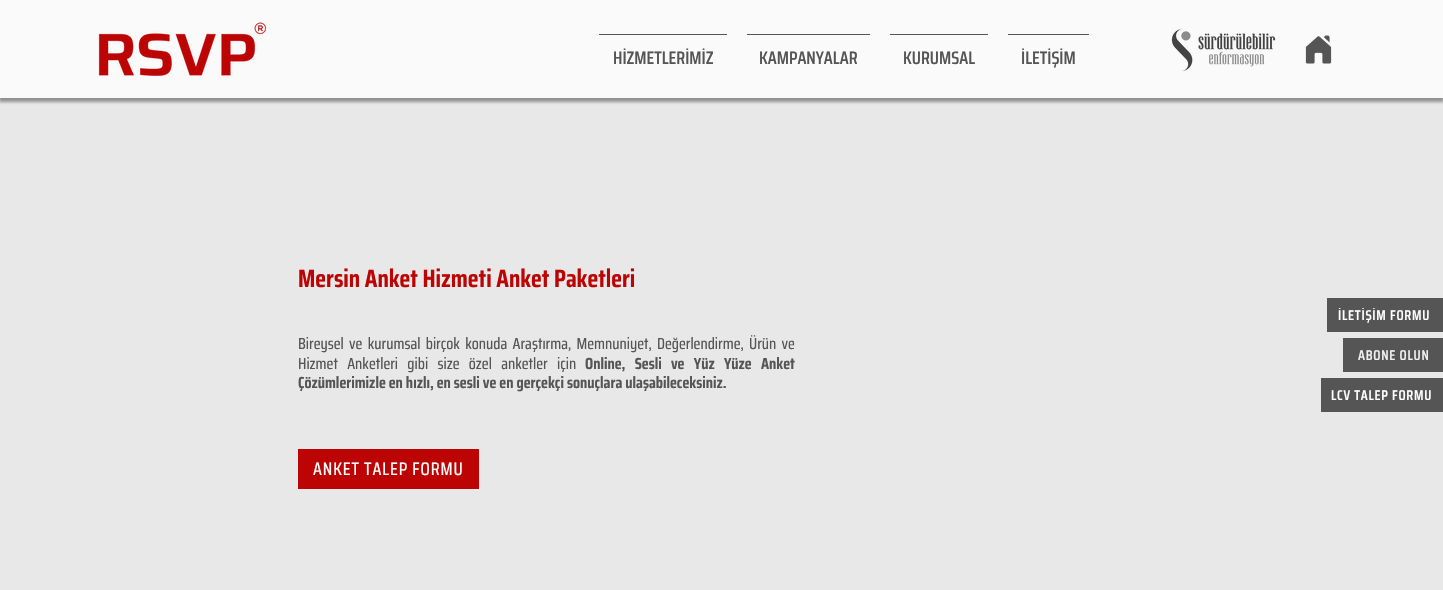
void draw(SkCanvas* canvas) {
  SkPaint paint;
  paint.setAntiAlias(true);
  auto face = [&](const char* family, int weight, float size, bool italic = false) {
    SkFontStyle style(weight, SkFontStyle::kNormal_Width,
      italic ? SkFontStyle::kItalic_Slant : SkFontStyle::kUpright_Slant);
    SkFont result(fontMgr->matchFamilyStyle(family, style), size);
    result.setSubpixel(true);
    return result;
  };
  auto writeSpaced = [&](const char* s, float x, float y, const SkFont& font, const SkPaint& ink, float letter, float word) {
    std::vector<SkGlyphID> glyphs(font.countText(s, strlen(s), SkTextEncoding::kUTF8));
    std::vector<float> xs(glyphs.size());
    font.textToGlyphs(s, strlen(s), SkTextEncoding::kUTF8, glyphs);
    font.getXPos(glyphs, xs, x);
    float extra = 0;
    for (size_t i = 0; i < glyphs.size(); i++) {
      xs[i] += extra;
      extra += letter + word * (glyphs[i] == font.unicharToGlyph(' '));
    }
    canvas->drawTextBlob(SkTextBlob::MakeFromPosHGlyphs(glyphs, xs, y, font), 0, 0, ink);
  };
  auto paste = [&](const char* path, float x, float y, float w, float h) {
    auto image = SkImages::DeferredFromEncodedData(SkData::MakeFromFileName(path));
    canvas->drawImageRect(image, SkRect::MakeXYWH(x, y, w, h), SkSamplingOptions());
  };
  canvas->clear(0xffe8e8e8);
  paint.setColor(0x99555555);
  paint.setMaskFilter(SkMaskFilter::MakeBlur(kNormal_SkBlurStyle, 1.5f));
  canvas->drawRect(SkRect::MakeXYWH(-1, 2, 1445, 100), paint);
  paint.setMaskFilter(nullptr);
  paint.setColor(0xfffafafa);
  canvas->drawRect(SkRect::MakeXYWH(0, 0, 1443, 98), paint);
  paste("img/1.png", 98, 22, 169, 54);
  {
    const struct { float x, y, w, h; SkColor color; } items[] = {
      {599, 34, 128, 1, 0xff555555},
      {747, 34, 123, 1, 0xff555555},
      {890, 34, 98, 1, 0xff555555},
      {1008, 34, 81, 1, 0xff555555},
    };
    for (auto [x, y, w, h, color] : items) {
      paint.setColor(color);
      canvas->drawRect(SkRect::MakeXYWH(x, y, w, h), paint);
    }
  }
  paste("img/2.png", 1171, 28, 105, 44);
  paste("img/3.png", 1305, 35, 27, 29);
  {
    const struct { float x, y, w, h; SkColor color; } items[] = {
      {298, 449, 181, 40, 0xffbc0404},
      {1327, 298, 116, 34, 0xff555555},
      {1343, 338, 100, 34, 0xff555555},
      {1321, 378, 122, 34, 0xff555555},
    };
    for (auto [x, y, w, h, color] : items) {
      paint.setColor(color);
      canvas->drawRect(SkRect::MakeXYWH(x, y, w, h), paint);
    }
  }
  auto f0 = face("Saira Condensed", 600, 18);
  {
    const struct { const char* s; float x, y; } items[] = {
      {"HİZMETLERİMİZ", 613, 64},
      {"KAMPANYALAR", 759, 64},
      {"KURUMSAL", 903, 64},
      {"İLETİŞİM", 1021, 64},
    };
    for (auto [s, x, y] : items) {
      canvas->drawString(s, x, y, f0, paint);
    }
  }
  auto f1 = face("Saira Condensed", 700, 25);
  paint.setColor(0xffbc0404);
  canvas->drawString("Mersin Anket Hizmeti Anket Paketleri", 298, 287, f1, paint);
  auto f2 = face("Saira Condensed", 500, 16);
  paint.setColor(0xff555555);
  writeSpaced("Bireysel ve kurumsal birçok konuda Araştırma, Memnuniyet, Değerlendirme, Ürün ve", 298, 349, f2, paint, 0, 2.25f);
  writeSpaced("Hizmet Anketleri gibi size özel anketler için", 298, 369, f2, paint, 0, 6.25f);
  auto f3 = face("Saira Condensed", 700, 16);
  writeSpaced("Online, Sesli ve Yüz Yüze Anket", 585, 369, f3, paint, 0, 6.25f);
  canvas->drawString("Çözümlerimizle en hızlı, en sesli ve en gerçekçi sonuçlara ulaşabileceksiniz.", 298, 388, f3, paint);
  auto f4 = face("Saira Condensed", 500, 18);
  paint.setColor(0xffffffff);
  writeSpaced("ANKET TALEP FORMU", 313, 475, f4, paint, 0.9f, 0);
  auto f5 = face("Saira Condensed", 600, 14);
  writeSpaced("İLETİŞİM FORMU", 1338, 320, f5, paint, 0.75f, 0);
  paint.setColor(0xfff0f0f0);
  writeSpaced("ABONE OLUN", 1358, 360, f5, paint, 0.75f, 0);
  paint.setColor(0xffffffff);
  writeSpaced("LCV TALEP FORMU", 1331, 400, f5, paint, 0.75f, 0);
}
